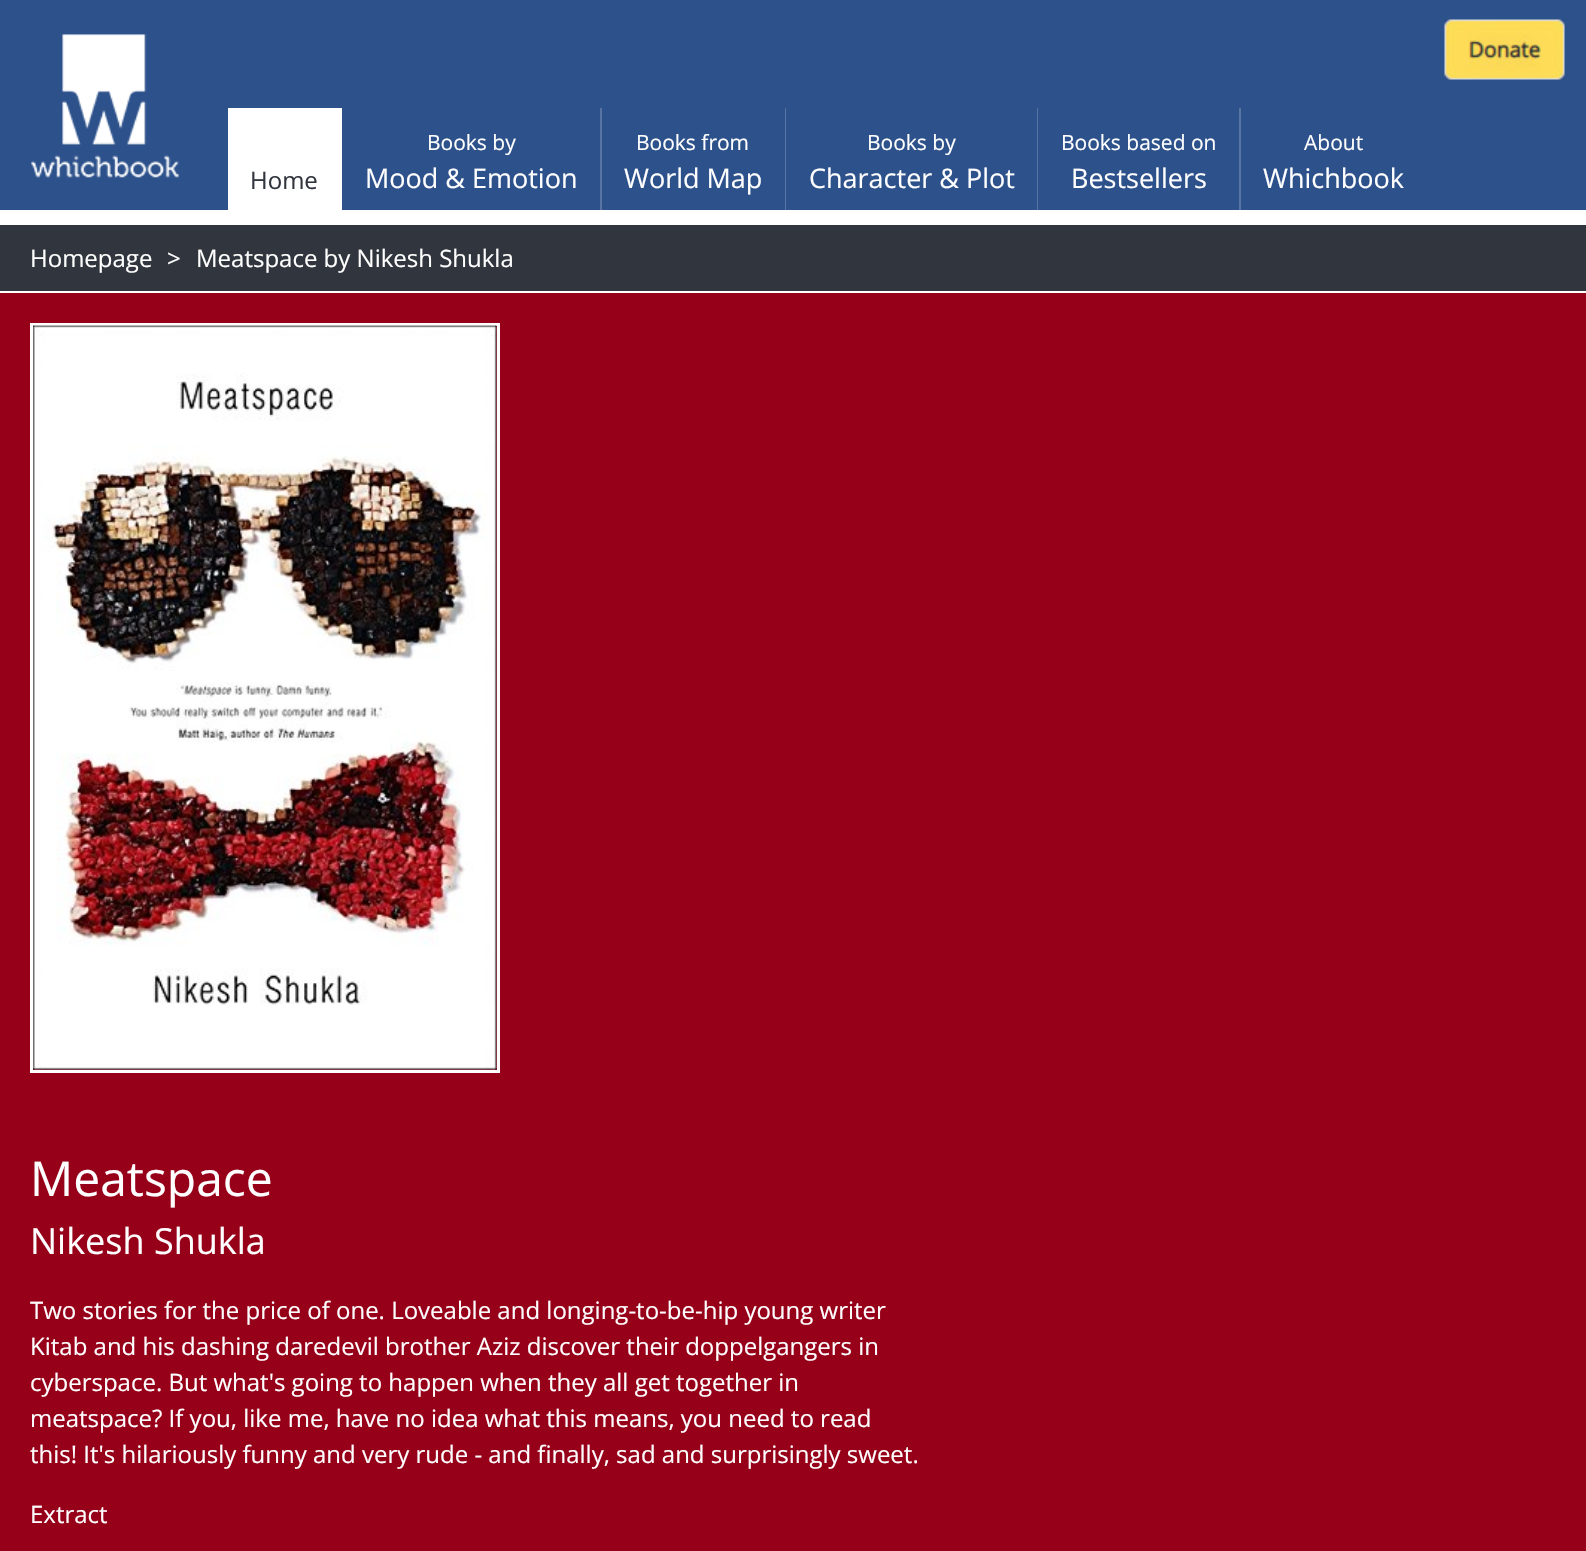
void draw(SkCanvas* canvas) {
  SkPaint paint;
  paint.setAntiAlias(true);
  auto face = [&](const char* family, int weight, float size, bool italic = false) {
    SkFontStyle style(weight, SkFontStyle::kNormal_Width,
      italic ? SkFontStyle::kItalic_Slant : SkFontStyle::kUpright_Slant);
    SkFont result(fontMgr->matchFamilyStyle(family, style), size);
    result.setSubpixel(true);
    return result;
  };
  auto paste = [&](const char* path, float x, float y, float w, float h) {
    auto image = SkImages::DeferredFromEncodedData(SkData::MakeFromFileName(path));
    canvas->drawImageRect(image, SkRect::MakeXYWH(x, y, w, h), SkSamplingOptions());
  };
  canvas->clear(0xff31353d);
  paint.setColor(0xff2d518b);
  canvas->drawRect(SkRect::MakeXYWH(0, 0, 1586, 210), paint);
  paint.setColor(0xffffffff);
  canvas->drawRect(SkRect::MakeXYWH(0, 210, 1586, 15), paint);
  paste("img/1.png", 31, 34, 148, 144);
  {
    const struct { float x, y, w, h; SkColor color; } items[] = {
      {228, 108, 114, 102, 0xffffffff},
      {600, 108, 2, 102, 0xff5774a2},
      {785, 108, 1, 102, 0xff5774a2},
      {1037, 108, 1, 102, 0xff5774a2},
      {1239, 108, 2, 102, 0xff5774a2},
    };
    for (auto [x, y, w, h, color] : items) {
      paint.setColor(color);
      canvas->drawRect(SkRect::MakeXYWH(x, y, w, h), paint);
    }
  }
  paste("img/2.png", 1444, 19, 121, 61);
  paint.setColor(0xffffffff);
  canvas->drawRect(SkRect::MakeXYWH(0, 291, 1586, 2), paint);
  paint.setColor(0xff960019);
  canvas->drawRect(SkRect::MakeXYWH(0, 293, 1586, 1258), paint);
  paint.setStroke(true);
  paint.setStrokeWidth(3);
  paint.setColor(0xffffffff);
  canvas->drawRect(SkRect::MakeXYWH(31.5f, 324.5f, 467, 747), paint);
  paste("img/3.png", 33, 325, 464, 745);
  auto f0 = face("Open Sans", 400, 24);
  paint.setStroke(false);
  paint.setColor(0xff31353d);
  canvas->drawString("Home", 250, 189, f0, paint);
  auto f1 = face("Open Sans", 400, 21);
  paint.setColor(0xffffffff);
  canvas->drawString("Books by", 427, 150, f1, paint);
  auto f2 = face("Open Sans", 400, 27);
  canvas->drawString("Mood & Emotion", 365, 188, f2, paint);
  canvas->drawString("Books from", 636, 150, f1, paint);
  canvas->drawString("World Map", 624, 188, f2, paint);
  canvas->drawString("Books by", 867, 150, f1, paint);
  canvas->drawString("Character & Plot", 809, 188, f2, paint);
  canvas->drawString("Books based on", 1061, 150, f1, paint);
  canvas->drawString("Bestsellers", 1071, 188, f2, paint);
  canvas->drawString("About", 1304, 150, f1, paint);
  canvas->drawString("Whichbook", 1263, 188, f2, paint);
  {
    const struct { const char* s; float x, y; } items[] = {
      {"Homepage", 30, 267},
      {">", 167, 267},
      {"Meatspace by Nikesh Shukla", 196, 267},
    };
    for (auto [s, x, y] : items) {
      canvas->drawString(s, x, y, f0, paint);
    }
  }
  auto f3 = face("Open Sans", 400, 48);
  canvas->drawString("Meatspace", 30, 1196, f3, paint);
  auto f4 = face("Open Sans", 400, 36);
  canvas->drawString("Nikesh Shukla", 30, 1254, f4, paint);
  {
    const struct { const char* s; float x, y; } items[] = {
      {"Two stories for the price of one. Loveable and longing-to-be-hip young writer", 30, 1319},
      {"Kitab and his dashing daredevil brother Aziz discover their doppelgangers in", 30, 1355},
      {"cyberspace. But what's going to happen when they all get together in", 30, 1391},
      {"meatspace? If you, like me, have no idea what this means, you need to read", 30, 1427},
      {"this! It's hilariously funny and very rude - and finally, sad and surprisingly sweet.", 30, 1463},
      {"Extract", 30, 1523},
    };
    for (auto [s, x, y] : items) {
      canvas->drawString(s, x, y, f0, paint);
    }
  }
}
